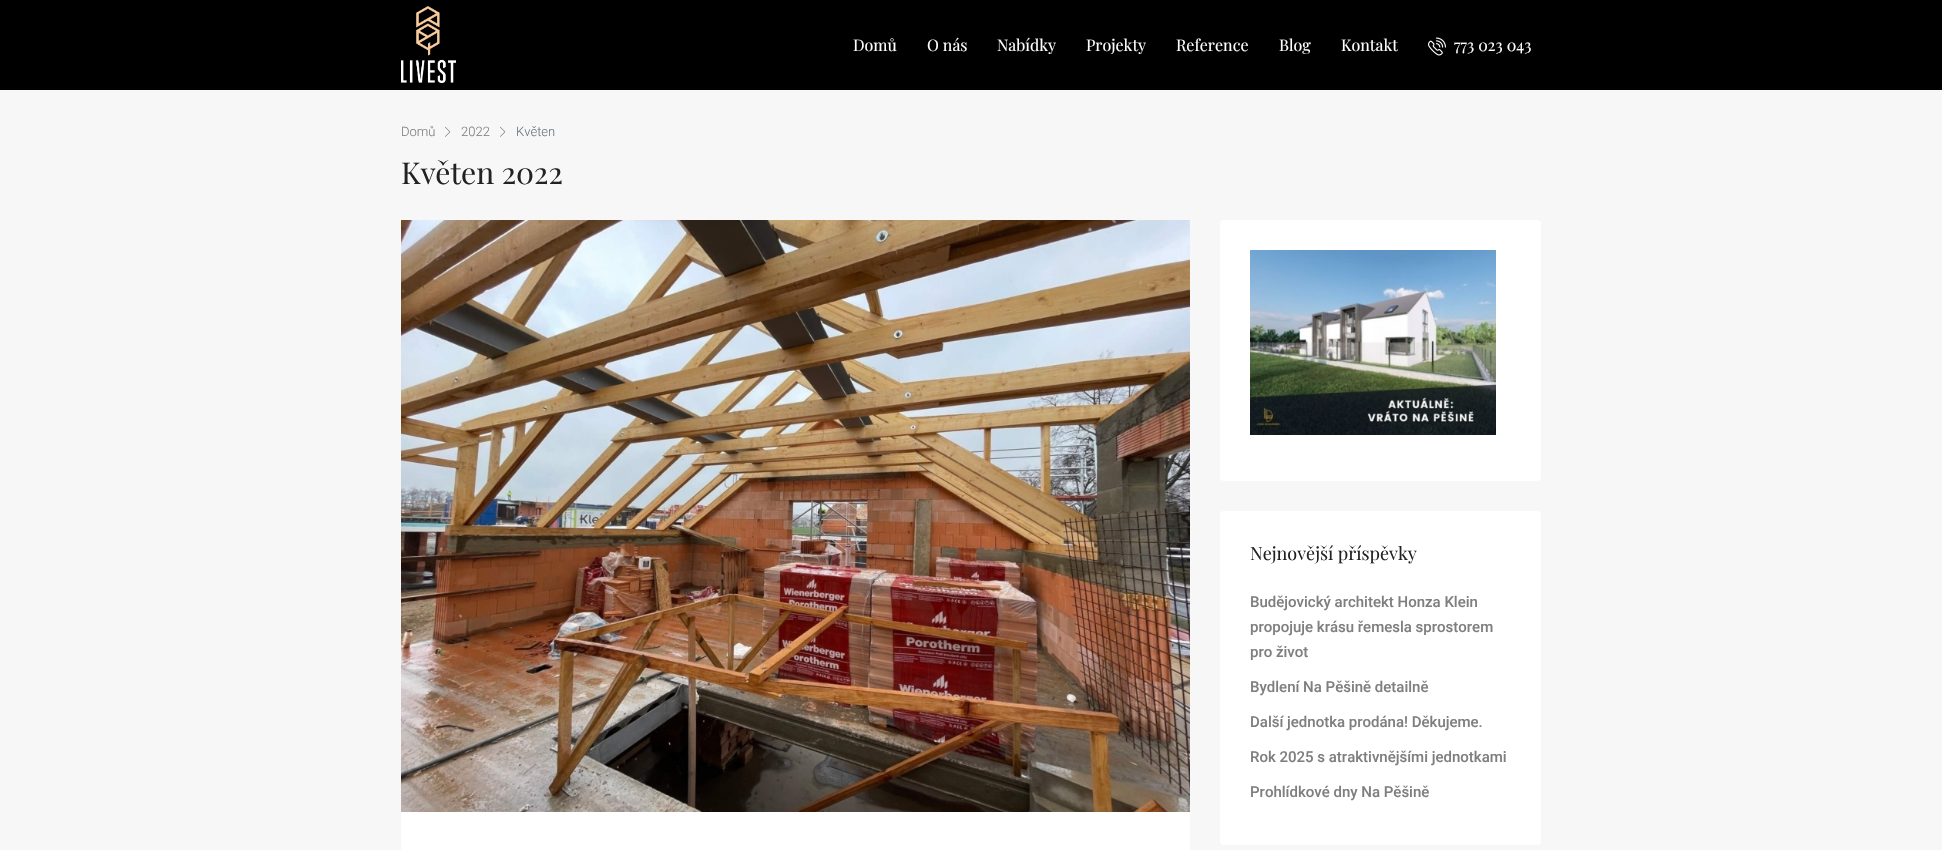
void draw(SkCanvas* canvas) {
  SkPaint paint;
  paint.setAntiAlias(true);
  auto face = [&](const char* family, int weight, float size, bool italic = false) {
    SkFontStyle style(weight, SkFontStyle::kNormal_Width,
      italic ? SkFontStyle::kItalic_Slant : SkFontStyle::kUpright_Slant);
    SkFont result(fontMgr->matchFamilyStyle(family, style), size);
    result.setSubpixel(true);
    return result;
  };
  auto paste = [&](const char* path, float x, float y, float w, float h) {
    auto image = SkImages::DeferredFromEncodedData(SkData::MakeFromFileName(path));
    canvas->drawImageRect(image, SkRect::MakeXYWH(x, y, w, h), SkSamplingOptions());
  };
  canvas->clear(0xfff7f7f7);
  paint.setColor(0xff000000);
  canvas->drawRect(SkRect::MakeXYWH(0, 0, 1942, 90), paint);
  paste("img/1.png", 401, 6, 55, 77);
  paste("img/2.png", 1428, 37, 18, 19);
  paste("img/3.png", 445, 126, 6, 11);
  paste("img/3.png", 500, 126, 6, 11);
  paint.setColor(0xffffffff);
  canvas->drawRect(SkRect::MakeXYWH(401, 812, 789, 38), paint);
  paste("img/4.png", 401, 220, 789, 592);
  canvas->drawRoundRect(SkRect::MakeXYWH(1220, 220, 321, 261), 4, 4, paint);
  paste("img/5.png", 1250, 250, 246, 185);
  canvas->drawRoundRect(SkRect::MakeXYWH(1220, 511, 321, 334), 4, 4, paint);
  auto f0 = face("Playfair Display", 400, 16);
  {
    const struct { const char* s; float x, y; } items[] = {
      {"Domů", 853, 51},
      {"O nás", 927, 51},
      {"Nabídky", 997, 51},
      {"Projekty", 1086, 51},
      {"Reference", 1176, 51},
      {"Blog", 1279, 51},
      {"Kontakt", 1341, 51},
      {"773 023 043", 1454, 51},
    };
    for (auto [s, x, y] : items) {
      canvas->drawString(s, x, y, f0, paint);
    }
  }
  auto f1 = face("Roboto", 300, 13);
  paint.setColor(0xff7f7f7f);
  canvas->drawString("Domů", 401, 136, f1, paint);
  canvas->drawString("2022", 461, 136, f1, paint);
  paint.setColor(0xff6c757d);
  canvas->drawString("Květen", 516, 136, f1, paint);
  auto f2 = face("Playfair Display", 400, 30);
  paint.setColor(0xff222222);
  canvas->drawString("Květen 2022", 401, 184, f2, paint);
  auto f3 = face("Playfair Display", 400, 18);
  canvas->drawString("Nejnovější příspěvky", 1250, 560, f3, paint);
  auto f4 = face("Roboto", 500, 15);
  paint.setColor(0xff7f7f7f);
  {
    const struct { const char* s; float x, y; } items[] = {
      {"Budějovický architekt Honza Klein", 1250, 607},
      {"propojuje krásu řemesla s prostorem", 1250, 632},
      {"pro život", 1250, 657},
      {"Bydlení Na Pěšině detailně", 1250, 692},
      {"Další jednotka prodána! Děkujeme.", 1250, 727},
      {"Rok 2025 s atraktivnějšími jednotkami", 1250, 762},
      {"Prohlídkové dny Na Pěšině", 1250, 797},
    };
    for (auto [s, x, y] : items) {
      canvas->drawString(s, x, y, f4, paint);
    }
  }
}
